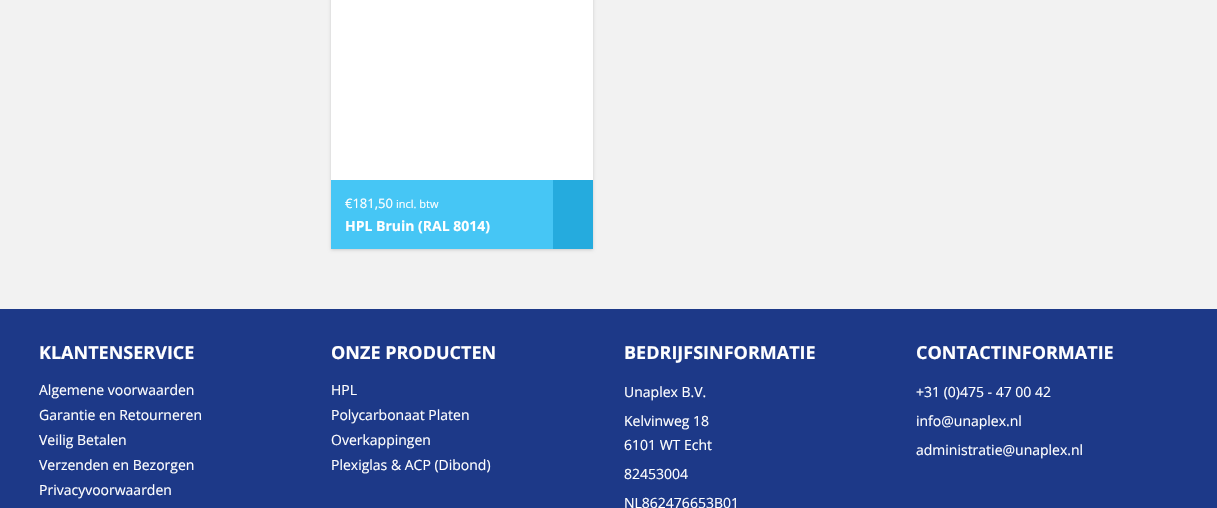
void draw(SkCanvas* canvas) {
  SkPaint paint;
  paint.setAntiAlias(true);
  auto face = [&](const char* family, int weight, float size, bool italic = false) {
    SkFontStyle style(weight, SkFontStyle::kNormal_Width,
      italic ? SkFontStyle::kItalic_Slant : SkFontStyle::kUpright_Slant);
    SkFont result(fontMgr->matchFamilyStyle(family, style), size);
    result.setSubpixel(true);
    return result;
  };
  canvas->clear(0xfff2f2f2);
  paint.setColor(0x29000000);
  paint.setMaskFilter(SkMaskFilter::MakeBlur(kNormal_SkBlurStyle, 1.5f));
  canvas->drawRect(SkRect::MakeXYWH(331, -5, 262, 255), paint);
  paint.setMaskFilter(nullptr);
  {
    const struct { float x, y, w, h; SkColor color; } items[] = {
      {331, 0, 262, 180, 0xffffffff},
      {331, 180, 222, 69, 0xff46c6f5},
      {553, 180, 40, 69, 0xff25abde},
      {0, 309, 1217, 199, 0xff1d3988},
    };
    for (auto [x, y, w, h, color] : items) {
      paint.setColor(color);
      canvas->drawRect(SkRect::MakeXYWH(x, y, w, h), paint);
    }
  }
  auto f0 = face("Open Sans", 400, 13);
  paint.setColor(0xffffffff);
  canvas->drawString("€181,50", 345, 208, f0, paint);
  auto f1 = face("Open Sans", 400, 11);
  canvas->drawString("incl. btw", 396, 208, f1, paint);
  auto f2 = face("Open Sans", 700, 14);
  canvas->drawString("HPL Bruin (RAL 8014)", 345, 231, f2, paint);
  auto f3 = face("Open Sans", 700, 18);
  canvas->drawString("KLANTENSERVICE", 39, 359, f3, paint);
  auto f4 = face("Open Sans", 400, 14);
  {
    const struct { const char* s; float x, y; } items[] = {
      {"Algemene voorwaarden", 39, 395},
      {"Garantie en Retourneren", 39, 420},
      {"Veilig Betalen", 39, 445},
      {"Verzenden en Bezorgen", 39, 470},
      {"Privacyvoorwaarden", 39, 495},
    };
    for (auto [s, x, y] : items) {
      canvas->drawString(s, x, y, f4, paint);
    }
  }
  canvas->drawString("ONZE PRODUCTEN", 331, 359, f3, paint);
  {
    const struct { const char* s; float x, y; } items[] = {
      {"HPL", 331, 395},
      {"Polycarbonaat Platen", 331, 420},
      {"Overkappingen", 331, 445},
      {"Plexiglas & ACP (Dibond)", 331, 470},
    };
    for (auto [s, x, y] : items) {
      canvas->drawString(s, x, y, f4, paint);
    }
  }
  canvas->drawString("BEDRIJFSINFORMATIE", 624, 359, f3, paint);
  {
    const struct { const char* s; float x, y; } items[] = {
      {"Unaplex B.V.", 624, 397},
      {"Kelvinweg 18", 624, 426},
      {"6101 WT Echt", 624, 450},
      {"82453004", 624, 479},
      {"NL862476653B01", 624, 508},
    };
    for (auto [s, x, y] : items) {
      canvas->drawString(s, x, y, f4, paint);
    }
  }
  canvas->drawString("CONTACTINFORMATIE", 916, 359, f3, paint);
  {
    const struct { const char* s; float x, y; } items[] = {
      {"+31 (0)475 - 47 00 42", 916, 397},
      {"info@unaplex.nl", 916, 426},
      {"administratie@unaplex.nl", 916, 455},
    };
    for (auto [s, x, y] : items) {
      canvas->drawString(s, x, y, f4, paint);
    }
  }
}
